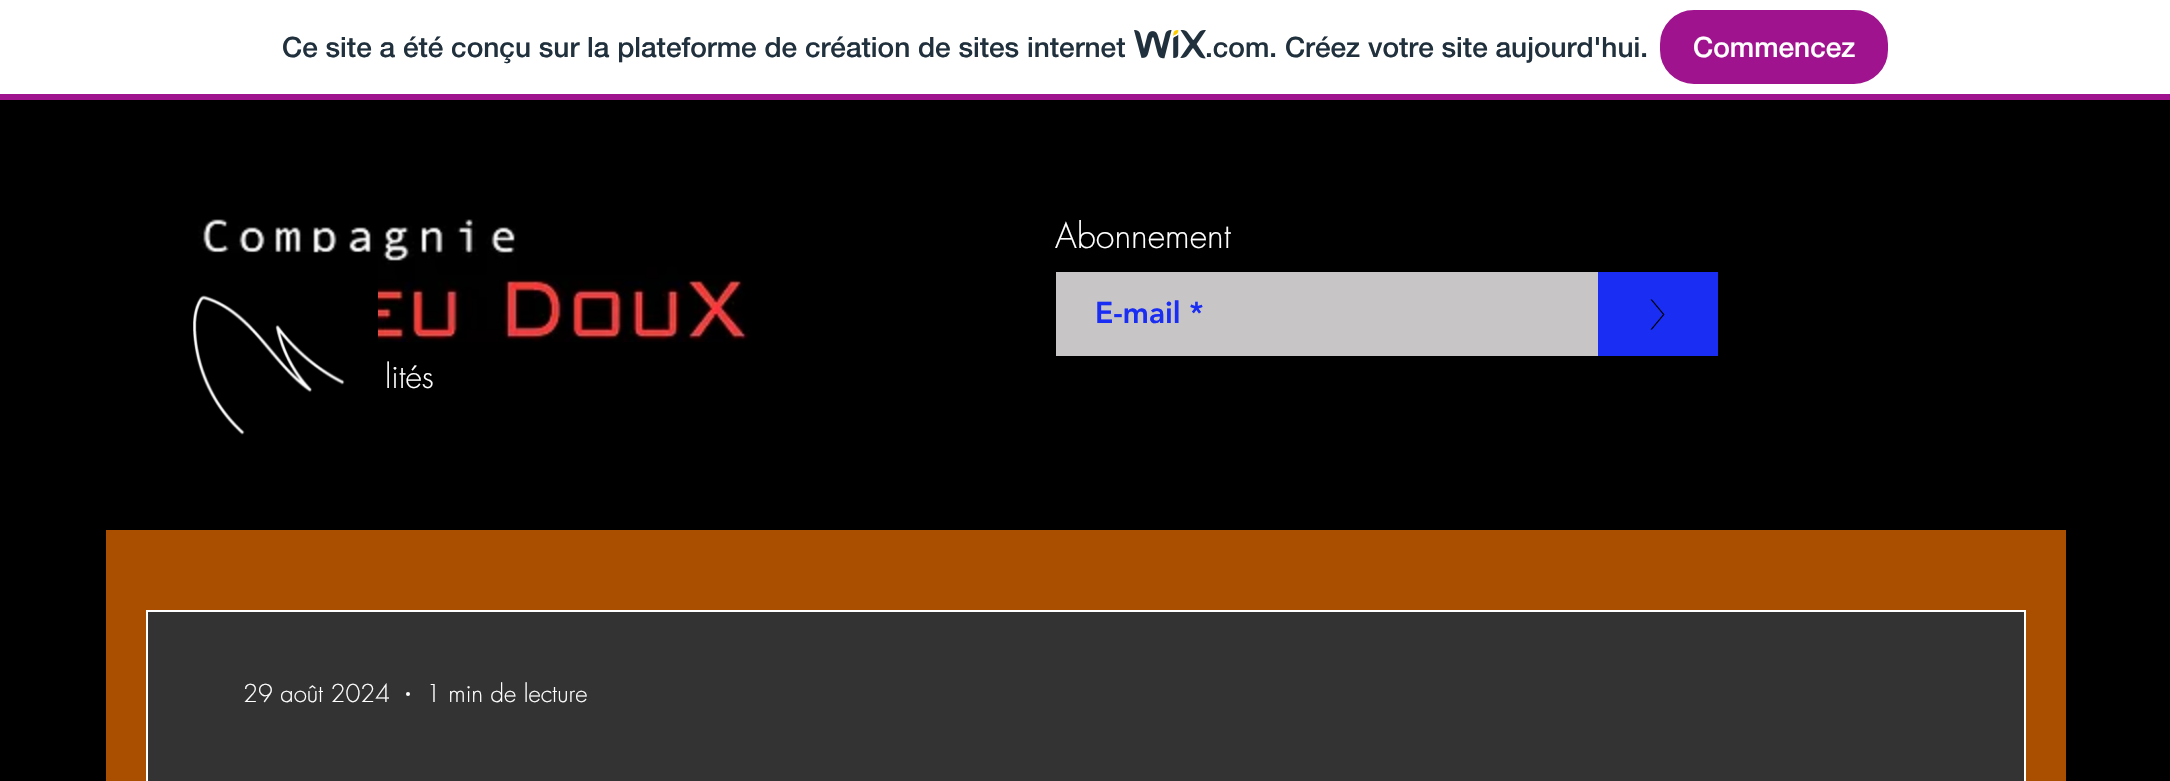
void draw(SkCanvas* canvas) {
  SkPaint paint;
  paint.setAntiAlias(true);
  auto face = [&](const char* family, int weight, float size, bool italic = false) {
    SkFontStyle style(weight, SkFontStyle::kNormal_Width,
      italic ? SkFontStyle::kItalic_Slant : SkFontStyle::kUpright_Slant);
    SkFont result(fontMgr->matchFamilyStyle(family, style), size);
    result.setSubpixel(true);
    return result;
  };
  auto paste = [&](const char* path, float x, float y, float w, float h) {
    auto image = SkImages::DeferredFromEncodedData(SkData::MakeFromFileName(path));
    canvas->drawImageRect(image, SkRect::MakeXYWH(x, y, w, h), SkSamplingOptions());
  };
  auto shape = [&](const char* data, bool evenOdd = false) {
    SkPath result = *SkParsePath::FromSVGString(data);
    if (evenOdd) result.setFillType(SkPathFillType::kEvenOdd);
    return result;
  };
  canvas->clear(0xffffffff);
  paint.setColor(0xffa0138e);
  canvas->drawRect(SkRect::MakeXYWH(0, 94, 2170, 6), paint);
  paste("img/1.png", 1134, 30, 72, 29);
  canvas->drawRoundRect(SkRect::MakeXYWH(1661, 11, 226, 72), 33, 33, paint);
  paint.setStroke(true);
  paint.setStrokeWidth(2);
  canvas->drawRoundRect(SkRect::MakeXYWH(1661, 11, 226, 72), 33, 33, paint);
  paint.setStroke(false);
  paint.setColor(0xff000000);
  canvas->drawRect(SkRect::MakeXYWH(0, 100, 2170, 681), paint);
  paste("img/3.png", 198, 219, 552, 123);
  paste("img/2.png", 193, 251, 185, 184);
  paint.setColor(0xffc7c5c5);
  canvas->drawRect(SkRect::MakeXYWH(1056, 272, 542, 84), paint);
  paint.setColor(0xff1a2df3);
  canvas->drawRect(SkRect::MakeXYWH(1598, 272, 120, 84), paint);
  paint.setColor(0xff000000);
  canvas->drawPath(shape("M1664.5 314.5L1652 329.5H1650.5L1663 314.5L1650.5 299.5H1652Z"), paint);
  paint.setColor(0xffaa4f00);
  canvas->drawRect(SkRect::MakeXYWH(106, 530, 1960, 251), paint);
  paint.setStroke(true);
  paint.setColor(0xffffffff);
  canvas->drawRect(SkRect::MakeXYWH(147, 611, 1878, 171), paint);
  paint.setStroke(false);
  paint.setColor(0xff333333);
  canvas->drawRect(SkRect::MakeXYWH(148, 612, 1876, 169), paint);
  paint.setColor(0xffffffff);
  canvas->drawCircle(408, 694, 2, paint);
  auto f0 = face("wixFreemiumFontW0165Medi", 500, 28);
  paint.setColor(0xff20303c);
  canvas->drawString("Ce site a été conçu sur la plateforme de création de sites internet", 282, 57, f0, paint);
  canvas->drawString(".com. Créez votre site aujourd'hui.", 1205, 57, f0, paint);
  paint.setColor(0xffffffff);
  canvas->drawString("Commencez", 1693, 57, f0, paint);
  auto f1 = face("futura", 300, 34);
  canvas->drawString("Abonnement", 1055, 248, f1, paint);
  auto f2 = face("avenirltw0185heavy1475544", 900, 30);
  paint.setColor(0xff1a2df3);
  canvas->drawString("E-mail *", 1095, 323, f2, paint);
  auto f3 = face("futura", 300, 32);
  paint.setColor(0xffffffff);
  canvas->drawString("lités", 385, 388, f3, paint);
  auto f4 = face("futura", 300, 24);
  canvas->drawString("29 août 2024", 243, 702, f4, paint);
  canvas->drawString("1 min de lecture", 426, 702, f4, paint);
}
